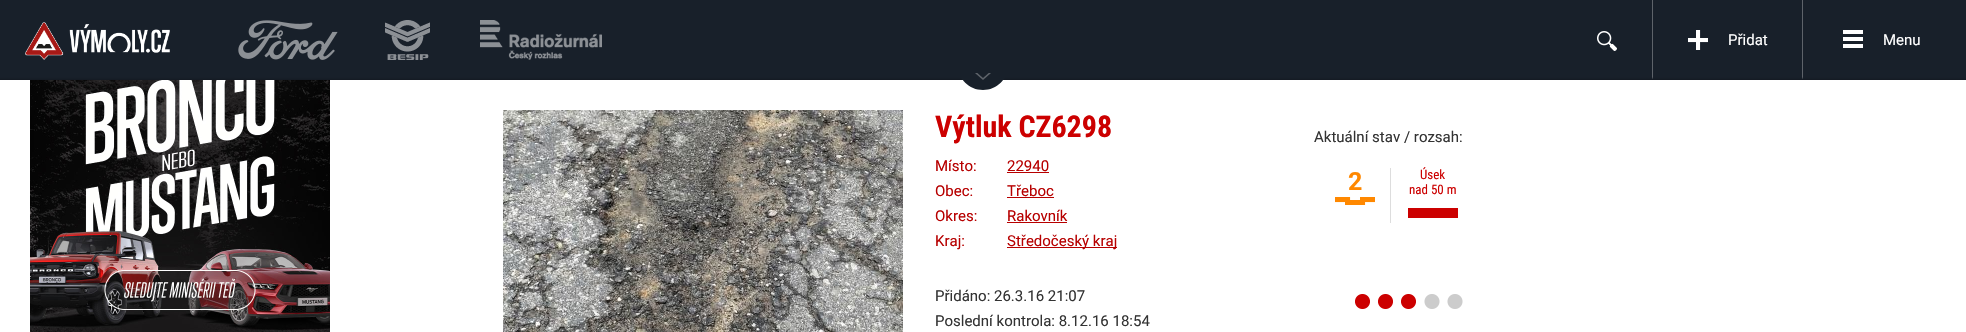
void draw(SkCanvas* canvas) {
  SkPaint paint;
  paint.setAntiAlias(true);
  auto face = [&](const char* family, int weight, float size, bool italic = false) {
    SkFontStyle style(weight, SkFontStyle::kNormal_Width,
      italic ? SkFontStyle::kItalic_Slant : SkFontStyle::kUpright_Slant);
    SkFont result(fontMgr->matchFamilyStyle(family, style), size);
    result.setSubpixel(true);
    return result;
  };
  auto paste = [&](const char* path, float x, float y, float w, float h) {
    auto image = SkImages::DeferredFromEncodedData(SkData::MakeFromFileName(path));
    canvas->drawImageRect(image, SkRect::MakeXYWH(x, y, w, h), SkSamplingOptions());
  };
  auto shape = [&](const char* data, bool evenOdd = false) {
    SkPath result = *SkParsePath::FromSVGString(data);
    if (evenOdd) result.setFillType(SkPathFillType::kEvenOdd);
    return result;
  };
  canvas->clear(0xffffffff);
  paint.setColor(0xff18202a);
  canvas->drawRect(SkRect::MakeXYWH(0, 0, 1966, 80), paint);
  paste("img/1.png", 25, 22, 145, 38);
  paste("img/2.png", 238, 20, 100, 40);
  paste("img/3.png", 385, 20, 45, 40);
  paste("img/4.png", 480, 20, 122, 40);
  paste("img/5.png", 1597, 31, 20, 20);
  paint.setColor(0xff5e636a);
  canvas->drawRect(SkRect::MakeXYWH(1652, 0, 1, 80), paint);
  paste("img/6.png", 1688, 30, 20, 20);
  canvas->drawRect(SkRect::MakeXYWH(1802, 0, 1, 80), paint);
  paste("img/7.png", 1843, 30, 20, 18);
  {
    const SkColor colors[] = {0x00141b24, 0xff141b24, 0xff18202a};
    const float stops[] = {0, 0.85f, 1};
    const SkPoint ends[] = {{983, 77}, {983, 80}};
    paint.setShader(SkGradientShader::MakeLinear(ends, colors, stops, 3, SkTileMode::kClamp));
    paint.setAlpha(255);
  }
  canvas->drawRect(SkRect::MakeXYWH(0, 77, 1966, 3), paint);
  paint.setShader(nullptr);
  paint.setColor(0xff18202a);
  canvas->drawPath(shape("M958 71H1008V65C1008 79 997 90 983 90C969 90 958 79 958 65Z"), paint);
  paint.setColor(0xff5e636a);
  canvas->drawPath(shape("M975 73H991L983 80Z"), paint);
  paint.setColor(0xff18202a);
  canvas->drawPath(shape("M975 71H991L983 78Z"), paint);
  paste("img/8.png", 30, 80, 300, 252);
  paste("img/9.png", 503, 110, 400, 222);
  {
    const struct { float x, y, w, h; SkColor color; } items[] = {
      {1007, 172, 42, 1, 0xffb70000},
      {1007, 197, 47, 1, 0xffb70000},
      {1007, 222, 60, 1, 0xffb70000},
      {1007, 247, 110, 1, 0xffb70000},
    };
    for (auto [x, y, w, h, color] : items) {
      paint.setColor(color);
      canvas->drawRect(SkRect::MakeXYWH(x, y, w, h), paint);
    }
  }
  paste("img/10.png", 1335, 197, 40, 8);
  paint.setColor(0xffdddddd);
  canvas->drawRect(SkRect::MakeXYWH(1390, 168, 1, 55), paint);
  paint.setColor(0xffcc0000);
  canvas->drawRect(SkRect::MakeXYWH(1408, 208, 50, 10), paint);
  paste("img/11.png", 1355, 294, 15, 15);
  paste("img/11.png", 1378, 294, 15, 15);
  paste("img/11.png", 1401, 294, 15, 15);
  paste("img/12.png", 1424, 294, 16, 15);
  paste("img/12.png", 1447, 294, 16, 15);
  auto f0 = face("Roboto", 400, 15);
  paint.setColor(0xffffffff);
  canvas->drawString("Přidat", 1728, 45, f0, paint);
  canvas->drawString("Menu", 1883, 45, f0, paint);
  auto f1 = face("Roboto Condensed", 700, 30);
  paint.setColor(0xffcc0000);
  canvas->drawString("Výtluk CZ6298", 935, 137, f1, paint);
  paint.setColor(0xffb70000);
  {
    const struct { const char* s; float x, y; } items[] = {
      {"Místo:", 935, 171},
      {"22940", 1007, 171},
      {"Obec:", 935, 196},
      {"Třeboc", 1007, 196},
      {"Okres:", 935, 221},
      {"Rakovník", 1007, 221},
      {"Kraj:", 935, 246},
      {"Středočeský kraj", 1007, 246},
    };
    for (auto [s, x, y] : items) {
      canvas->drawString(s, x, y, f0, paint);
    }
  }
  paint.setColor(0xff333333);
  canvas->drawString("Aktuální stav / rozsah:", 1314, 142, f0, paint);
  auto f2 = face("Roboto", 700, 25);
  paint.setColor(0xffff8800);
  canvas->drawString("2", 1348, 190, f2, paint);
  auto f3 = face("Roboto Condensed", 400, 13);
  paint.setColor(0xffcc0000);
  canvas->drawString("Úsek", 1420, 179, f3, paint);
  canvas->drawString("nad 50 m", 1409, 194, f3, paint);
  paint.setColor(0xff333333);
  canvas->drawString("Přidáno: 26.3.16 21:07", 935, 301, f0, paint);
  canvas->drawString("Poslední kontrola: 8.12.16 18:54", 935, 326, f0, paint);
}
